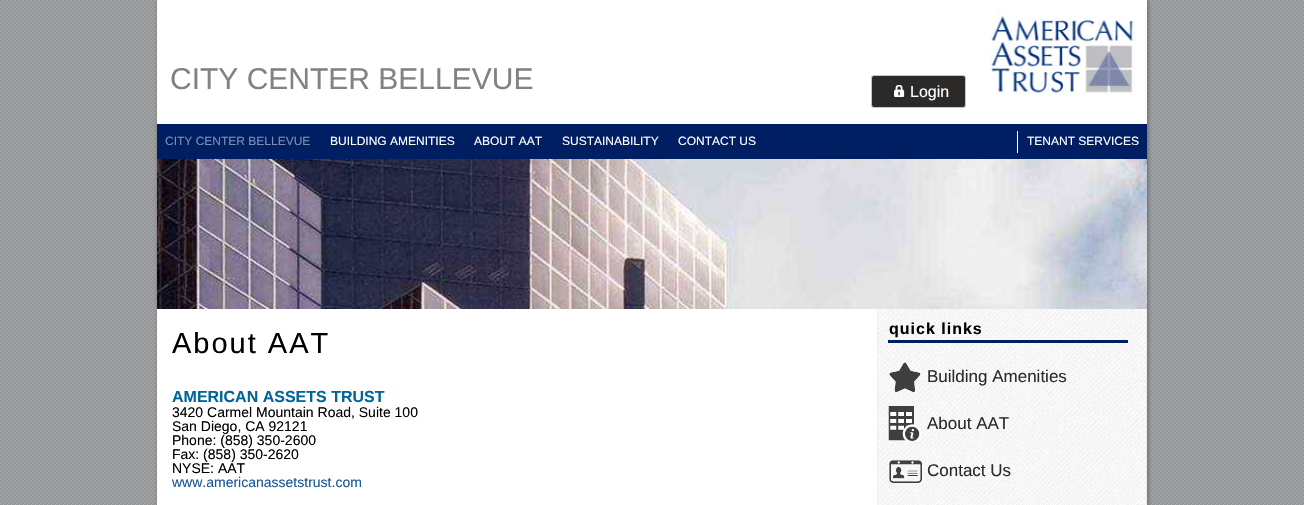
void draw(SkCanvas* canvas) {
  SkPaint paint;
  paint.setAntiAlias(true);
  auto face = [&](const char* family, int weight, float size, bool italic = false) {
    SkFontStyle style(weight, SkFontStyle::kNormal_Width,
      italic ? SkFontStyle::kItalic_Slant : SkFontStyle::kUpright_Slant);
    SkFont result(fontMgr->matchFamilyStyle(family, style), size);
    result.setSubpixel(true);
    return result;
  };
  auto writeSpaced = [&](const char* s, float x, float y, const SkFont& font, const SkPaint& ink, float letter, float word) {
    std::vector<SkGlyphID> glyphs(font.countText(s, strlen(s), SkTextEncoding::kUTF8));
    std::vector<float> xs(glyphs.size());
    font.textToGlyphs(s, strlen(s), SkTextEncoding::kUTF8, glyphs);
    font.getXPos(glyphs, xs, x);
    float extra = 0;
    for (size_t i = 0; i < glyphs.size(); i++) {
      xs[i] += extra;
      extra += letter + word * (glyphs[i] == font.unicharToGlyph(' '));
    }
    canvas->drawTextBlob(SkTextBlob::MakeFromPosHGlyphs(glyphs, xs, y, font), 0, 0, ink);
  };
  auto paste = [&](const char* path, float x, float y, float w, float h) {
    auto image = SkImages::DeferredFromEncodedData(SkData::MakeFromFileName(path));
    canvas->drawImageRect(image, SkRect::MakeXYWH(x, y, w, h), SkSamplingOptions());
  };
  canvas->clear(0xffffffff);
  paste("img/1.png", 0, 0, 1304, 505);
  paint.setColor(0xff666666);
  paint.setMaskFilter(SkMaskFilter::MakeBlur(kNormal_SkBlurStyle, 2));
  canvas->drawRect(SkRect::MakeXYWH(158, 0, 990, 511), paint);
  paint.setMaskFilter(nullptr);
  paint.setColor(0xffffffff);
  canvas->drawRect(SkRect::MakeXYWH(157, 0, 990, 505), paint);
  paint.setColor(0xff2c2a29);
  canvas->drawRoundRect(SkRect::MakeXYWH(871.5f, 75.5f, 94, 32), 2.5f, 2.5f, paint);
  paint.setStroke(true);
  paint.setStrokeWidth(1);
  paint.setColor(0xffc5c5c5);
  canvas->drawRoundRect(SkRect::MakeXYWH(871.5f, 75.5f, 94, 32), 2.5f, 2.5f, paint);
  paste("img/2.png", 894, 85, 11, 12);
  paste("img/3.png", 990, 10, 146, 85);
  paint.setStroke(false);
  paint.setColor(0xff001e62);
  canvas->drawRect(SkRect::MakeXYWH(157, 124, 990, 35), paint);
  paint.setColor(0xffffffff);
  canvas->drawRect(SkRect::MakeXYWH(1017, 131, 1, 22), paint);
  paste("img/4.png", 157, 159, 990, 150);
  paste("img/5.png", 878, 309, 268, 196);
  {
    const struct { float x, y, w, h; SkColor color; } items[] = {
      {1146, 309, 1, 196, 0xffefefef},
      {877, 309, 1, 196, 0xffefefef},
      {888, 340, 240, 3, 0xff001e62},
    };
    for (auto [x, y, w, h, color] : items) {
      paint.setColor(color);
      canvas->drawRect(SkRect::MakeXYWH(x, y, w, h), paint);
    }
  }
  paste("img/6.png", 889, 362, 32, 31);
  paste("img/7.png", 888, 406, 33, 35);
  paste("img/8.png", 889, 460, 33, 23);
  auto f0 = face("Liberation Sans", 400, 30);
  paint.setColor(0xff808284);
  canvas->drawString("CITY CENTER BELLEVUE", 170, 89, f0, paint);
  auto f1 = face("Liberation Sans", 400, 16);
  paint.setColor(0xffffffff);
  canvas->drawString("Login", 910, 97, f1, paint);
  auto f2 = face("Liberation Sans", 400, 12);
  paint.setColor(0xff808fb1);
  canvas->drawString("CITY CENTER BELLEVUE", 165, 145, f2, paint);
  paint.setColor(0xffffffff);
  {
    const struct { const char* s; float x, y; } items[] = {
      {"BUILDING AMENITIES", 330, 145},
      {"ABOUT AAT", 474, 145},
      {"SUSTAINABILITY", 562, 145},
      {"CONTACT US", 678, 145},
      {"TENANT SERVICES", 1027, 145},
    };
    for (auto [s, x, y] : items) {
      canvas->drawString(s, x, y, f2, paint);
    }
  }
  auto f3 = face("Liberation Sans", 400, 29);
  paint.setColor(0xff000000);
  writeSpaced("About AAT", 172, 353, f3, paint, 2, 0);
  auto f4 = face("Liberation Sans", 700, 16);
  paint.setColor(0xff006699);
  canvas->drawString("AMERICAN ASSETS TRUST", 172, 402, f4, paint);
  auto f5 = face("Liberation Sans", 400, 14);
  paint.setColor(0xff000000);
  {
    const struct { const char* s; float x, y; } items[] = {
      {"3420 Carmel Mountain Road, Suite 100", 172, 417},
      {"San Diego, CA 92121", 172, 431},
      {"Phone: (858) 350-2600", 172, 445},
      {"Fax: (858) 350-2620", 172, 459},
      {"NYSE: AAT", 172, 473},
    };
    for (auto [s, x, y] : items) {
      canvas->drawString(s, x, y, f5, paint);
    }
  }
  paint.setColor(0xff1a5794);
  canvas->drawString("www.americanassetstrust.com", 172, 487, f5, paint);
  paint.setColor(0xff000000);
  writeSpaced("quick links", 889, 334, f4, paint, 1, 0);
  auto f6 = face("Liberation Sans", 400, 17);
  paint.setColor(0xff2c2a29);
  {
    const struct { const char* s; float x, y; } items[] = {
      {"Building Amenities", 927, 382},
      {"About AAT", 927, 429},
      {"Contact Us", 927, 476},
    };
    for (auto [s, x, y] : items) {
      canvas->drawString(s, x, y, f6, paint);
    }
  }
}
